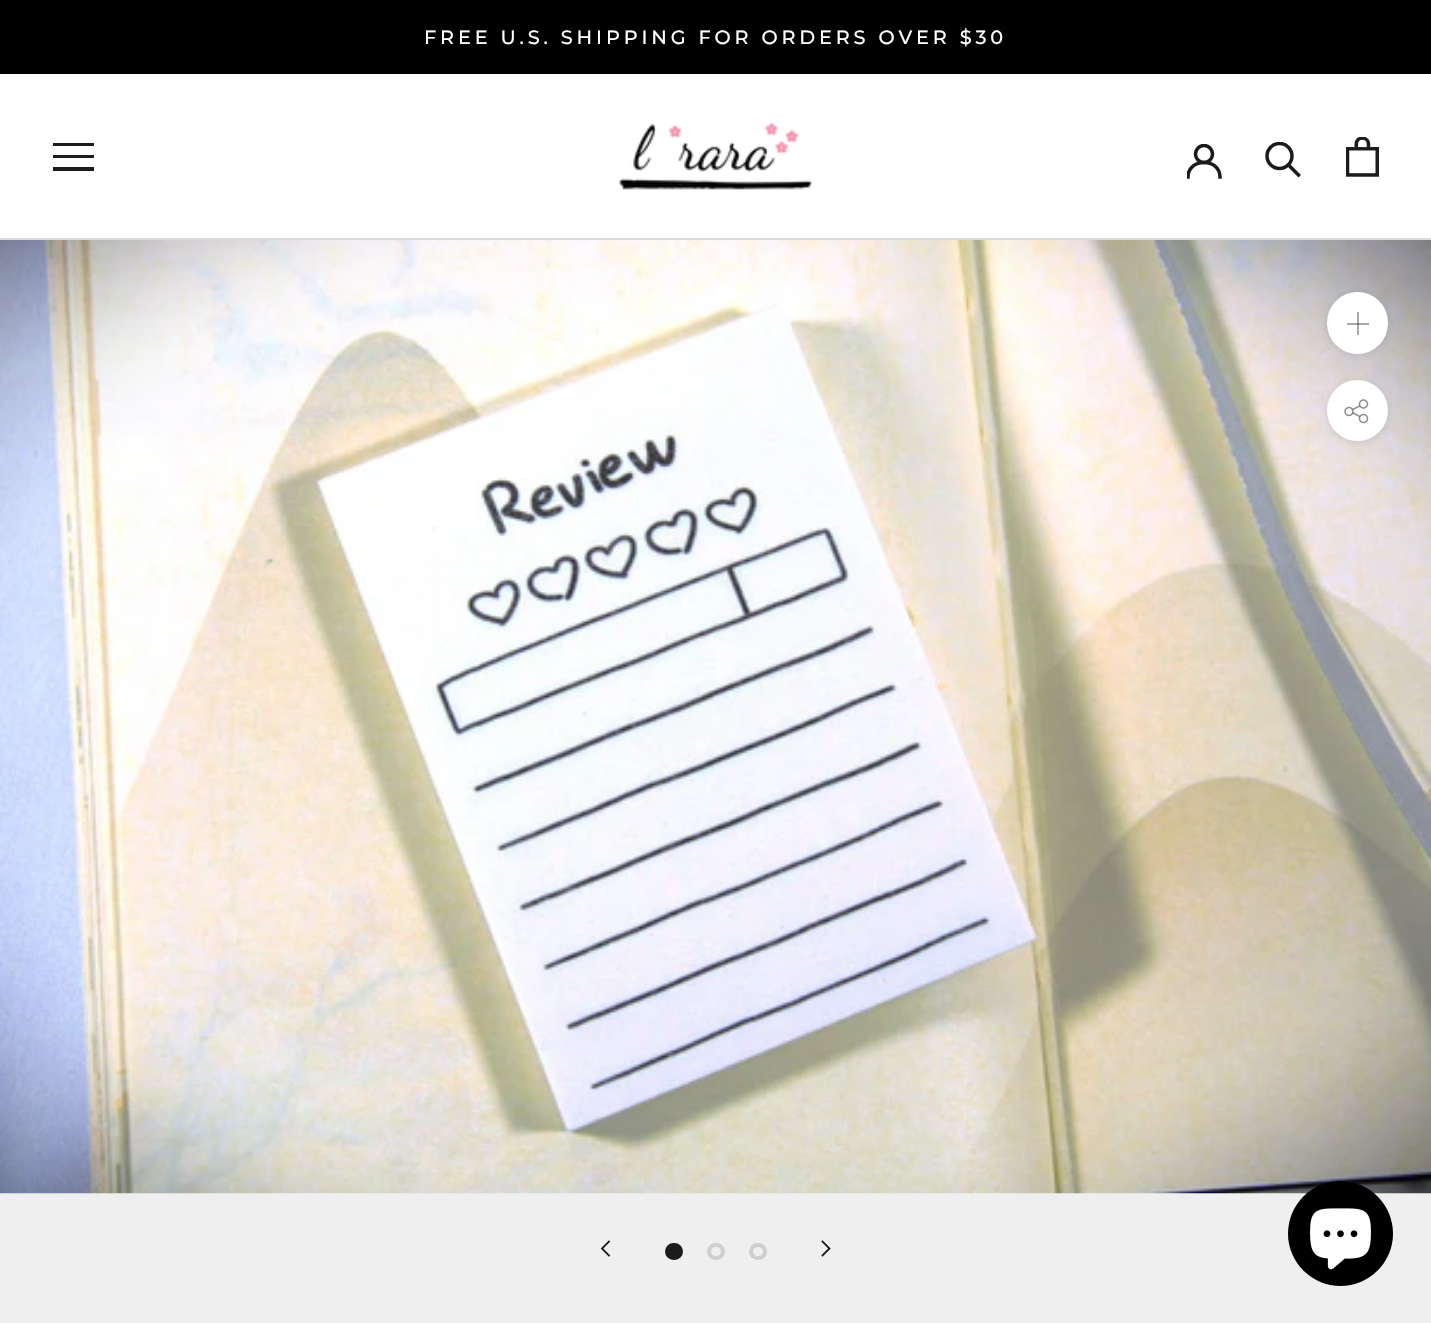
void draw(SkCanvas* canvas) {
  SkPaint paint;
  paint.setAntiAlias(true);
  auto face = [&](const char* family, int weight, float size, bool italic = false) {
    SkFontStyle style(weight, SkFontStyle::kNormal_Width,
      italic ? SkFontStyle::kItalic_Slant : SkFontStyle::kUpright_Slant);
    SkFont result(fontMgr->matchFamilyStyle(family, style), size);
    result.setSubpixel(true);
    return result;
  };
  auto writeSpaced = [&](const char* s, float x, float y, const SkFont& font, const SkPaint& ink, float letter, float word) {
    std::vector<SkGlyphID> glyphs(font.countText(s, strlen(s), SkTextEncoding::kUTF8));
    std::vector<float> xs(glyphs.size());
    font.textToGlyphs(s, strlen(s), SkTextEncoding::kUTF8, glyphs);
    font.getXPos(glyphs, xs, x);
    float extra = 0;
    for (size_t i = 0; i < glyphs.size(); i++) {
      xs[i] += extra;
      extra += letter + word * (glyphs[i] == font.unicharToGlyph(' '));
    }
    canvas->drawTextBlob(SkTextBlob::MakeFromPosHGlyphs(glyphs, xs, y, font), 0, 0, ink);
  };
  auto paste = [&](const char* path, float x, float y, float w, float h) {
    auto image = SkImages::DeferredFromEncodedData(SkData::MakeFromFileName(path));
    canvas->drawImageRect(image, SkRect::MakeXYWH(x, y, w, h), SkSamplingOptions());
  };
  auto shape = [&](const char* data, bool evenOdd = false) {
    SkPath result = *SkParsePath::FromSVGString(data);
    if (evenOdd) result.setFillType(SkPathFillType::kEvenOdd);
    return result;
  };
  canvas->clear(0xffefefef);
  {
    const struct { float x, y, w, h; SkColor color; } items[] = {
      {0, 0, 1431, 74, 0xff000000},
      {0, 74, 1431, 164, 0xffffffff},
      {0, 238, 1431, 2, 0xffdddddd},
    };
    for (auto [x, y, w, h, color] : items) {
      paint.setColor(color);
      canvas->drawRect(SkRect::MakeXYWH(x, y, w, h), paint);
    }
  }
  canvas->save();
  canvas->clipRect(SkRect::MakeXYWH(53, 142, 42, 30));
  paint.setColor(0xff1c1b1b);
  canvas->drawPath(shape("M52 171V167H94V171ZM52 155H94V158H52ZM52 143H94V146H52Z"), paint);
  canvas->restore();
  paste("img/1.png", 619, 122, 194, 68);
  canvas->save();
  canvas->clipRect(SkRect::MakeXYWH(1187, 144, 35, 35));
  paint.setStroke(true);
  paint.setStrokeWidth(3.5f);
  paint.setStrokeCap(SkPaint::kSquare_Cap);
  canvas->drawPath(shape("M1188 177C1188 157.5 1220 157.5 1220 177"), paint);
  paint.setStrokeCap(SkPaint::kButt_Cap);
  canvas->drawCircle(1204, 154, 8.5f, paint);
  canvas->restore();
  paint.setStrokeCap(SkPaint::kSquare_Cap);
  canvas->drawPath(shape("M1298.5 175L1288.5 165"), paint);
  canvas->save();
  canvas->clipRect(SkRect::MakeXYWH(1265, 142, 37, 37));
  paint.setStrokeCap(SkPaint::kButt_Cap);
  canvas->drawCircle(1279.5f, 156, 12.5f, paint);
  canvas->restore();
  paste("img/2.png", 1346, 137, 33, 40);
  paste("img/3.png", 0, 240, 1431, 954);
  paint.setStroke(false);
  paint.setColor(0x26363636);
  paint.setMaskFilter(SkMaskFilter::MakeBlur(kNormal_SkBlurStyle, 4.5f));
  canvas->drawRoundRect(SkRect::MakeXYWH(1327, 294, 61, 61), 30.5f, 30.5f, paint);
  paint.setMaskFilter(nullptr);
  paint.setColor(0xffffffff);
  canvas->drawRoundRect(SkRect::MakeXYWH(1327, 292, 61, 62), 30.5f, 30.5f, paint);
  paint.setColor(0xffaaaaaa);
  canvas->drawRect(SkRect::MakeXYWH(1357, 312, 2, 23), paint);
  paint.setColor(0x611c1b1b);
  canvas->drawRect(SkRect::MakeXYWH(1347, 323, 22, 2), paint);
  paint.setColor(0x26363636);
  paint.setMaskFilter(SkMaskFilter::MakeBlur(kNormal_SkBlurStyle, 4.5f));
  canvas->drawRoundRect(SkRect::MakeXYWH(1327, 382, 61, 61), 30.5f, 30.5f, paint);
  paint.setMaskFilter(nullptr);
  paint.setColor(0xffffffff);
  canvas->drawCircle(1357.5f, 410.5f, 30.5f, paint);
  paste("img/4.png", 1344, 399, 25, 25);
  paint.setStroke(true);
  paint.setStrokeWidth(1.8f);
  paint.setStrokeCap(SkPaint::kSquare_Cap);
  paint.setColor(0xff1c1b1b);
  canvas->drawPath(shape("M609 1255.5L602 1248.5L609 1241.5"), paint);
  paint.setStroke(false);
  canvas->drawRoundRect(SkRect::MakeXYWH(667, 1245, 14, 13), 6.5f, 6.5f, paint);
  paint.setStroke(true);
  paint.setStrokeWidth(4);
  paint.setStrokeCap(SkPaint::kButt_Cap);
  canvas->drawRoundRect(SkRect::MakeXYWH(667, 1245, 14, 13), 6.5f, 6.5f, paint);
  paint.setColor(0xffcfcfcf);
  canvas->drawRoundRect(SkRect::MakeXYWH(709, 1245, 14, 13), 6.5f, 6.5f, paint);
  canvas->drawRoundRect(SkRect::MakeXYWH(751, 1245, 14, 13), 6.5f, 6.5f, paint);
  paint.setStrokeWidth(1.8f);
  paint.setStrokeCap(SkPaint::kSquare_Cap);
  paint.setColor(0xff1c1b1b);
  canvas->drawPath(shape("M822.5 1255.5L829.5 1248.5L822.5 1241.5"), paint);
  paint.setStroke(false);
  paint.setColor(0xff000000);
  canvas->drawCircle(1340.5f, 1233.5f, 52.5f, paint);
  paste("img/5.png", 1310, 1208, 61, 62);
  auto f0 = face("Montserrat", 500, 19.25f);
  paint.setColor(0xffffffff);
  writeSpaced("FREE U.S. SHIPPING FOR ORDERS OVER $30", 424, 44, f0, paint, 3.85f, 0);
}
